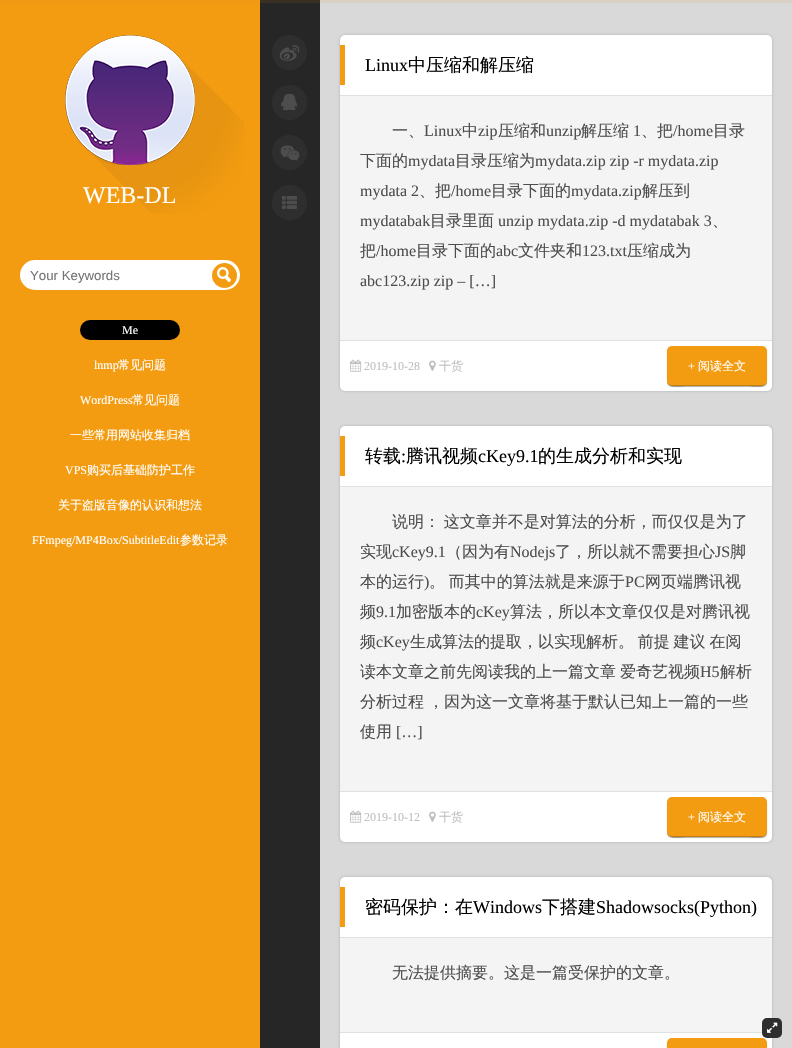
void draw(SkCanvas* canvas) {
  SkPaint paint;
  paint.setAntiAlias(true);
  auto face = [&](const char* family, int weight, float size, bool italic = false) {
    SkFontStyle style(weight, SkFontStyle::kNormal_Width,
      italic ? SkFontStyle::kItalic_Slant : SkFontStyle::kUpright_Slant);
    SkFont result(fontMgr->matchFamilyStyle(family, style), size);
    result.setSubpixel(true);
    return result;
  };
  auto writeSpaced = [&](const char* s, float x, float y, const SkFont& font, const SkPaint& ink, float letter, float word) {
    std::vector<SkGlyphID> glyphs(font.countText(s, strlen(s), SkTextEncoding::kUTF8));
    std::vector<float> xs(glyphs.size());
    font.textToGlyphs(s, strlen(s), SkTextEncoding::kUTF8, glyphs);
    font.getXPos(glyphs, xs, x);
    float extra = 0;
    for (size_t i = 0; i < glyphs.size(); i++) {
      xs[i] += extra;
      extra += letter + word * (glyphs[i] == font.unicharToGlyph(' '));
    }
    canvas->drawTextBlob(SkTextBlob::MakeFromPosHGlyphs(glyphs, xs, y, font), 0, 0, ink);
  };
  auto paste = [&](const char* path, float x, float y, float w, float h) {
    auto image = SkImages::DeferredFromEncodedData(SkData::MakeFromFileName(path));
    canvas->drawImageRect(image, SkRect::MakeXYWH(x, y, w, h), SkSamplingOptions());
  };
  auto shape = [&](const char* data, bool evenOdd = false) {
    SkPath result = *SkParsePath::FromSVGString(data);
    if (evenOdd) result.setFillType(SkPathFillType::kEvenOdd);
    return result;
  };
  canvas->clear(0xffd9d9d9);
  {
    const struct { float x, y, w, h; SkColor color; } items[] = {
      {0, 0, 260, 1048, 0xfff39c11},
      {260, 0, 60, 1048, 0xff262626},
      {0, 0, 792, 3, 0x1ae67f22},
    };
    for (auto [x, y, w, h, color] : items) {
      paint.setColor(color);
      canvas->drawRect(SkRect::MakeXYWH(x, y, w, h), paint);
    }
  }
  paste("img/1.png", 65, 35, 179, 179);
  paste("img/2.png", 65, 35, 130, 130);
  paste("img/3.png", 272, 35, 35, 35);
  paste("img/4.png", 272, 85, 35, 35);
  paste("img/5.png", 272, 135, 35, 35);
  paste("img/6.png", 272, 185, 35, 35);
  paint.setColor(0xffffffff);
  canvas->drawRoundRect(SkRect::MakeXYWH(20, 260, 220, 30), 15, 15, paint);
  paint.setColor(0xfff39c11);
  canvas->drawCircle(224.5f, 275.5f, 12.5f, paint);
  paste("img/7.png", 217, 267, 14, 15);
  paint.setColor(0xff000000);
  canvas->drawRoundRect(SkRect::MakeXYWH(80, 320, 100, 20), 10, 10, paint);
  paint.setColor(0x33000000);
  paint.setMaskFilter(SkMaskFilter::MakeBlur(kNormal_SkBlurStyle, 1.5f));
  canvas->drawRoundRect(SkRect::MakeXYWH(340, 35, 432, 356), 5, 5, paint);
  paint.setMaskFilter(nullptr);
  paint.setColor(0xffffffff);
  canvas->drawRoundRect(SkRect::MakeXYWH(340, 35, 432, 356), 5, 5, paint);
  {
    const struct { float x, y, w, h; SkColor color; } items[] = {
      {340, 45, 5, 40, 0xfff39c11},
      {340, 96, 432, 244, 0xfff4f4f4},
      {340, 95, 432, 1, 0xffdee1e0},
      {340, 340, 432, 1, 0xffdee1e0},
    };
    for (auto [x, y, w, h, color] : items) {
      paint.setColor(color);
      canvas->drawRect(SkRect::MakeXYWH(x, y, w, h), paint);
    }
  }
  paste("img/8.png", 350, 359, 12, 13);
  paste("img/9.png", 429, 360, 7, 11);
  paint.setColor(0x4d000000);
  paint.setMaskFilter(SkMaskFilter::MakeBlur(kNormal_SkBlurStyle, 0.5f));
  canvas->drawRoundRect(SkRect::MakeXYWH(667, 347, 100, 40), 5, 5, paint);
  paint.setMaskFilter(nullptr);
  paint.setColor(0xfff39c11);
  canvas->drawRoundRect(SkRect::MakeXYWH(667, 346, 100, 40), 5, 5, paint);
  paint.setColor(0x33000000);
  canvas->drawPath(shape("M667 380C667 390 682 386 687 386H747C752 386 767 390 767 380C767 383 765 385 762 385H672C669 385 667 383 667 380Z"), paint);
  paint.setMaskFilter(SkMaskFilter::MakeBlur(kNormal_SkBlurStyle, 1.5f));
  canvas->drawRoundRect(SkRect::MakeXYWH(340, 426, 432, 416), 5, 5, paint);
  paint.setMaskFilter(nullptr);
  paint.setColor(0xffffffff);
  canvas->drawRoundRect(SkRect::MakeXYWH(340, 426, 432, 416), 5, 5, paint);
  {
    const struct { float x, y, w, h; SkColor color; } items[] = {
      {340, 436, 5, 40, 0xfff39c11},
      {340, 487, 432, 304, 0xfff4f4f4},
      {340, 486, 432, 1, 0xffdee1e0},
      {340, 791, 432, 1, 0xffdee1e0},
    };
    for (auto [x, y, w, h, color] : items) {
      paint.setColor(color);
      canvas->drawRect(SkRect::MakeXYWH(x, y, w, h), paint);
    }
  }
  paste("img/8.png", 350, 810, 12, 13);
  paste("img/9.png", 429, 811, 7, 11);
  paint.setColor(0x4d000000);
  paint.setMaskFilter(SkMaskFilter::MakeBlur(kNormal_SkBlurStyle, 0.5f));
  canvas->drawRoundRect(SkRect::MakeXYWH(667, 798, 100, 40), 5, 5, paint);
  paint.setMaskFilter(nullptr);
  paint.setColor(0xfff39c11);
  canvas->drawRoundRect(SkRect::MakeXYWH(667, 797, 100, 40), 5, 5, paint);
  paint.setColor(0x33000000);
  canvas->drawPath(shape("M667 831C667 841 682 837 687 837H747C752 837 767 841 767 831C767 834 765 836 762 836H672C669 836 667 834 667 831Z"), paint);
  paint.setMaskFilter(SkMaskFilter::MakeBlur(kNormal_SkBlurStyle, 1.5f));
  canvas->drawRoundRect(SkRect::MakeXYWH(340, 877, 432, 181), 5, 5, paint);
  paint.setMaskFilter(nullptr);
  paint.setColor(0xffffffff);
  canvas->drawRoundRect(SkRect::MakeXYWH(340, 877, 432, 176), 5, 5, paint);
  {
    const struct { float x, y, w, h; SkColor color; } items[] = {
      {340, 887, 5, 40, 0xfff39c11},
      {340, 938, 432, 94, 0xfff4f4f4},
      {340, 937, 432, 1, 0xffdee1e0},
      {340, 1032, 422, 1, 0xffdee1e0},
    };
    for (auto [x, y, w, h, color] : items) {
      paint.setColor(color);
      canvas->drawRect(SkRect::MakeXYWH(x, y, w, h), paint);
    }
  }
  paint.setColor(0x4d000000);
  paint.setMaskFilter(SkMaskFilter::MakeBlur(kNormal_SkBlurStyle, 0.5f));
  canvas->drawRoundRect(SkRect::MakeXYWH(667, 1039, 100, 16), 5, 5, paint);
  paint.setMaskFilter(nullptr);
  paint.setColor(0xfff39c11);
  canvas->drawRoundRect(SkRect::MakeXYWH(667, 1038, 100, 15), 5, 5, paint);
  paint.setColor(0xff2e2e2e);
  canvas->drawRoundRect(SkRect::MakeXYWH(762, 1018, 20, 20), 5, 5, paint);
  paste("img/10.png", 767, 1022, 11, 11);
  auto f0 = face("Liberation Serif", 400, 24);
  paint.setColor(0xffffffff);
  canvas->drawString("WEB-DL", 83, 203, f0, paint);
  auto f1 = face("Liberation Sans", 400, 13.25f);
  paint.setColor(0xff757575);
  canvas->drawString("Your Keywords", 30, 280, f1, paint);
  auto f2 = face("Liberation Serif", 400, 12);
  paint.setColor(0xffffffff);
  canvas->drawString("Me", 122, 334, f2, paint);
  canvas->drawString("lnmp", 94, 369, f2, paint);
  auto f3 = face("WenQuanYi Zen Hei", 500, 12);
  canvas->drawString("常见问题", 118, 369, f3, paint);
  canvas->drawString("WordPress", 80, 404, f2, paint);
  canvas->drawString("常见问题", 132, 404, f3, paint);
  canvas->drawString("一些常用网站收集归档", 70, 439, f3, paint);
  canvas->drawString("VPS", 65, 474, f2, paint);
  canvas->drawString("购买后基础防护工作", 87, 474, f3, paint);
  canvas->drawString("关于盗版音像的认识和想法", 58, 509, f3, paint);
  canvas->drawString("FFmpeg/MP4Box/SubtitleEdit", 32, 544, f2, paint);
  canvas->drawString("参数记录", 180, 544, f3, paint);
  auto f4 = face("Liberation Serif", 400, 18);
  paint.setColor(0xff000000);
  canvas->drawString("Linux", 365, 71, f4, paint);
  auto f5 = face("WenQuanYi Zen Hei", 500, 18);
  canvas->drawString("中压缩和解压缩", 408, 71, f5, paint);
  auto f6 = face("WenQuanYi Zen Hei", 500, 16);
  paint.setColor(0xff4d4d4d);
  canvas->drawString("一、", 392, 136, f6, paint);
  auto f7 = face("Liberation Serif", 400, 16);
  canvas->drawString("Linux", 424, 136, f7, paint);
  canvas->drawString("中", 462, 136, f6, paint);
  canvas->drawString("zip", 478, 136, f7, paint);
  canvas->drawString("压缩和", 498, 136, f6, paint);
  canvas->drawString("unzip", 546, 136, f7, paint);
  canvas->drawString("解压缩", 581, 136, f6, paint);
  canvas->drawString("1", 633, 136, f7, paint);
  canvas->drawString("、把", 641, 136, f6, paint);
  canvas->drawString("/home", 673, 136, f7, paint);
  canvas->drawString("目录", 713, 136, f6, paint);
  canvas->drawString("下面的", 360, 166, f6, paint);
  canvas->drawString("mydata", 408, 166, f7, paint);
  canvas->drawString("目录压缩为", 455, 166, f6, paint);
  canvas->drawString("mydata.zip zip -r mydata.zip", 535, 166, f7, paint);
  canvas->drawString("mydata 2", 360, 196, f7, paint);
  canvas->drawString("、把", 419, 196, f6, paint);
  canvas->drawString("/home", 451, 196, f7, paint);
  canvas->drawString("目录下面的", 491, 196, f6, paint);
  canvas->drawString("mydata.zip", 571, 196, f7, paint);
  canvas->drawString("解压到", 642, 196, f6, paint);
  canvas->drawString("mydatabak", 360, 226, f7, paint);
  canvas->drawString("目录里面", 430, 226, f6, paint);
  canvas->drawString("unzip mydata.zip -d mydatabak 3", 498, 226, f7, paint);
  canvas->drawString("、", 712, 226, f6, paint);
  canvas->drawString("把", 360, 256, f6, paint);
  canvas->drawString("/home", 376, 256, f7, paint);
  canvas->drawString("目录下面的", 416, 256, f6, paint);
  canvas->drawString("abc", 496, 256, f7, paint);
  canvas->drawString("文件夹和", 518, 256, f6, paint);
  canvas->drawString("123.txt", 582, 256, f7, paint);
  canvas->drawString("压缩成为", 627, 256, f6, paint);
  canvas->drawString("abc123.zip zip – […]", 360, 286, f7, paint);
  paint.setColor(0xffbfbfbf);
  canvas->drawString("2019-10-28", 364, 370, f2, paint);
  canvas->drawString("干货", 439, 370, f3, paint);
  paint.setColor(0xffffffff);
  canvas->drawString("+", 688, 370, f2, paint);
  canvas->drawString("阅读全文", 698, 370, f3, paint);
  paint.setColor(0xff000000);
  canvas->drawString("转载", 365, 462, f5, paint);
  canvas->drawString(":", 401, 462, f4, paint);
  canvas->drawString("腾讯视频", 406, 462, f5, paint);
  canvas->drawString("cKey9.1", 478, 462, f4, paint);
  canvas->drawString("的生成分析和实现", 538, 462, f5, paint);
  paint.setColor(0xff4d4d4d);
  writeSpaced("说明： 这文章并不是对算法的分析，而仅仅是为了", 392, 527, f6, paint, 0, -1);
  canvas->drawString("实现", 360, 557, f6, paint);
  canvas->drawString("cKey9.1", 392, 557, f7, paint);
  canvas->drawString("（因为有", 446, 557, f6, paint);
  canvas->drawString("Nodejs", 510, 557, f7, paint);
  canvas->drawString("了，所以就不需要担心", 555, 557, f6, paint);
  canvas->drawString("JS", 715, 557, f7, paint);
  canvas->drawString("脚", 730, 557, f6, paint);
  canvas->drawString("本的运行", 360, 587, f6, paint);
  canvas->drawString(")", 424, 587, f7, paint);
  writeSpaced("。 而其中的算法就是来源于", 429, 587, f6, paint, 0, -1);
  canvas->drawString("PC", 625, 587, f7, paint);
  canvas->drawString("网页端腾讯视", 645, 587, f6, paint);
  canvas->drawString("频", 360, 617, f6, paint);
  canvas->drawString("9.1", 376, 617, f7, paint);
  canvas->drawString("加密版本的", 396, 617, f6, paint);
  canvas->drawString("cKey", 476, 617, f7, paint);
  canvas->drawString("算法，所以本文章仅仅是对腾讯视", 510, 617, f6, paint);
  canvas->drawString("频", 360, 647, f6, paint);
  canvas->drawString("cKey", 376, 647, f7, paint);
  writeSpaced("生成算法的提取，以实现解析。 前提 建议 在阅", 410, 647, f6, paint, 0, -1);
  canvas->drawString("读本文章之前先阅读我的上一篇文章", 360, 677, f6, paint);
  canvas->drawString("爱奇艺视频", 620, 677, f6, paint);
  canvas->drawString("H5", 700, 677, f7, paint);
  {
    const struct { const char* s; float x, y; } items[] = {
      {"解析", 720, 677},
      {"分析过程", 360, 707},
      {"，因为这一文章将基于默认已知上一篇的一些", 428, 707},
      {"使用", 360, 737},
    };
    for (auto [s, x, y] : items) {
      canvas->drawString(s, x, y, f6, paint);
    }
  }
  canvas->drawString("[…]", 396, 737, f7, paint);
  paint.setColor(0xffbfbfbf);
  canvas->drawString("2019-10-12", 364, 821, f2, paint);
  canvas->drawString("干货", 439, 821, f3, paint);
  paint.setColor(0xffffffff);
  canvas->drawString("+", 688, 821, f2, paint);
  canvas->drawString("阅读全文", 698, 821, f3, paint);
  paint.setColor(0xff000000);
  canvas->drawString("密码保护：在", 365, 913, f5, paint);
  canvas->drawString("Windows", 473, 913, f4, paint);
  canvas->drawString("下搭建", 542, 913, f5, paint);
  canvas->drawString("Shadowsocks(Python)", 596, 913, f4, paint);
  paint.setColor(0xff4d4d4d);
  canvas->drawString("无法提供摘要。这是一篇受保护的文章。", 392, 978, f6, paint);
}
